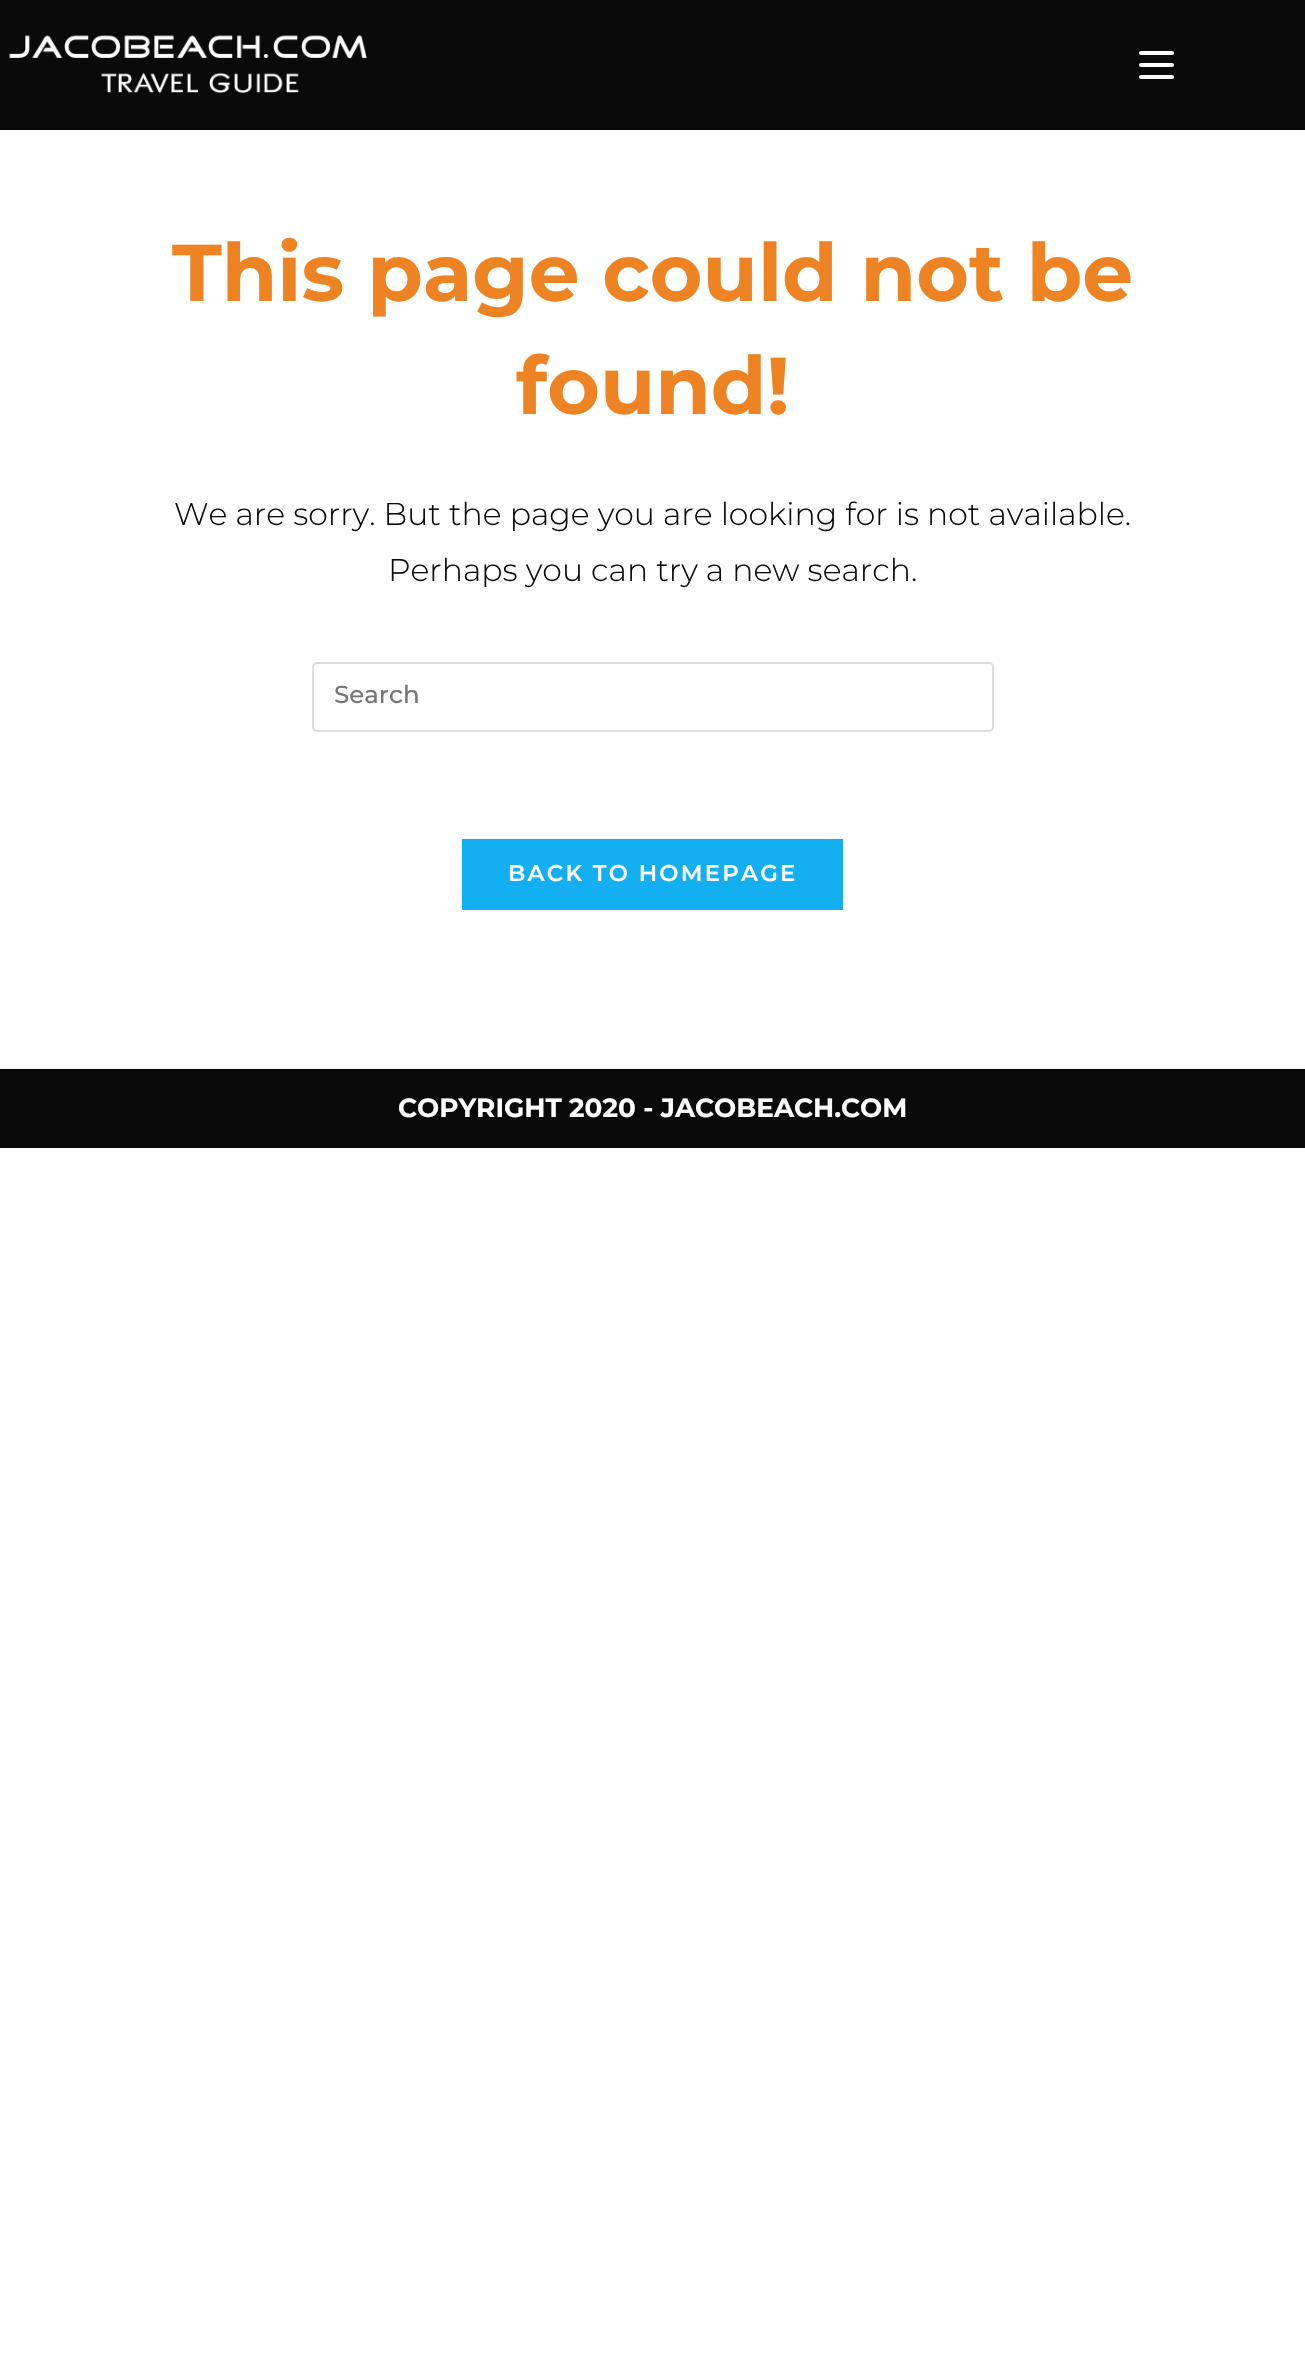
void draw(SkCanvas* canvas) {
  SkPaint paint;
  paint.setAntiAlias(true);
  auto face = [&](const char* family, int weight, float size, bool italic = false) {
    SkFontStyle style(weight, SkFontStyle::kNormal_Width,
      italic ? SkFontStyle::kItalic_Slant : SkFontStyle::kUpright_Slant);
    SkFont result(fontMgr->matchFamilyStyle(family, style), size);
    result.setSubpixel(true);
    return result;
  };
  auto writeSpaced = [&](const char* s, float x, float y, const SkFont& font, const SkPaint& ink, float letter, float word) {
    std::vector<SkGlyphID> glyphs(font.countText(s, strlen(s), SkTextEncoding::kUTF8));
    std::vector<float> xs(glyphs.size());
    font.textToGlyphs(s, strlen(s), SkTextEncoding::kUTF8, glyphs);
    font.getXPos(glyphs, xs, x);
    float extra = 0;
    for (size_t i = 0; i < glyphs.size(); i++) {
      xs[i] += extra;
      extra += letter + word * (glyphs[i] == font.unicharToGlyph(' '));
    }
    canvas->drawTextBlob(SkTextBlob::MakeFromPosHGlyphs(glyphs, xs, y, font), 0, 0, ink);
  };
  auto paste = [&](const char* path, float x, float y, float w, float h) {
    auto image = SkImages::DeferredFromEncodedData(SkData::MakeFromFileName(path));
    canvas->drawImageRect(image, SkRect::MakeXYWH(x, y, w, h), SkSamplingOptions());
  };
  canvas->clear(0xffffffff);
  paint.setColor(0xff0a0a0a);
  canvas->drawRect(SkRect::MakeXYWH(0, 0, 1305, 130), paint);
  paste("img/1.png", 9, 35, 358, 59);
  paint.setColor(0xffffffff);
  canvas->drawRoundRect(SkRect::MakeXYWH(1139, 63, 35, 4), 2, 2, paint);
  canvas->drawRoundRect(SkRect::MakeXYWH(1139, 51, 35, 4), 2, 2, paint);
  canvas->drawRoundRect(SkRect::MakeXYWH(1139, 75, 35, 4), 2, 2, paint);
  paint.setStroke(true);
  paint.setStrokeWidth(2);
  paint.setColor(0xffdddddd);
  canvas->drawRoundRect(SkRect::MakeXYWH(313, 663, 680, 68), 4, 4, paint);
  paint.setStroke(false);
  paint.setColor(0xff13aff0);
  canvas->drawRect(SkRect::MakeXYWH(462, 839, 381, 71), paint);
  paint.setColor(0xff0a0a0a);
  canvas->drawRect(SkRect::MakeXYWH(0, 1069, 1305, 79), paint);
  auto f0 = face("Montserrat", 700, 80.5f);
  paint.setColor(0xffed8323);
  canvas->drawString("This page could not be", 172, 301, f0, paint);
  canvas->drawString("found!", 516, 414, f0, paint);
  auto f1 = face("Montserrat", 300, 31.5f);
  paint.setColor(0xff0a0a0a);
  canvas->drawString("We are sorry. But the page you are looking for is not available.", 174, 525, f1, paint);
  canvas->drawString("Perhaps you can try a new search.", 388, 581, f1, paint);
  auto f2 = face("Montserrat", 500, 24.5f);
  paint.setColor(0xff757575);
  canvas->drawString("Search", 334, 703, f2, paint);
  auto f3 = face("Montserrat", 600, 22.75f);
  paint.setColor(0xffffffff);
  writeSpaced("BACK TO HOMEPAGE", 508, 881, f3, paint, 2.25f, 0);
  auto f4 = face("Montserrat", 700, 26.25f);
  canvas->drawString("COPYRIGHT 2020 - JACOBEACH.COM", 398, 1117, f4, paint);
}
